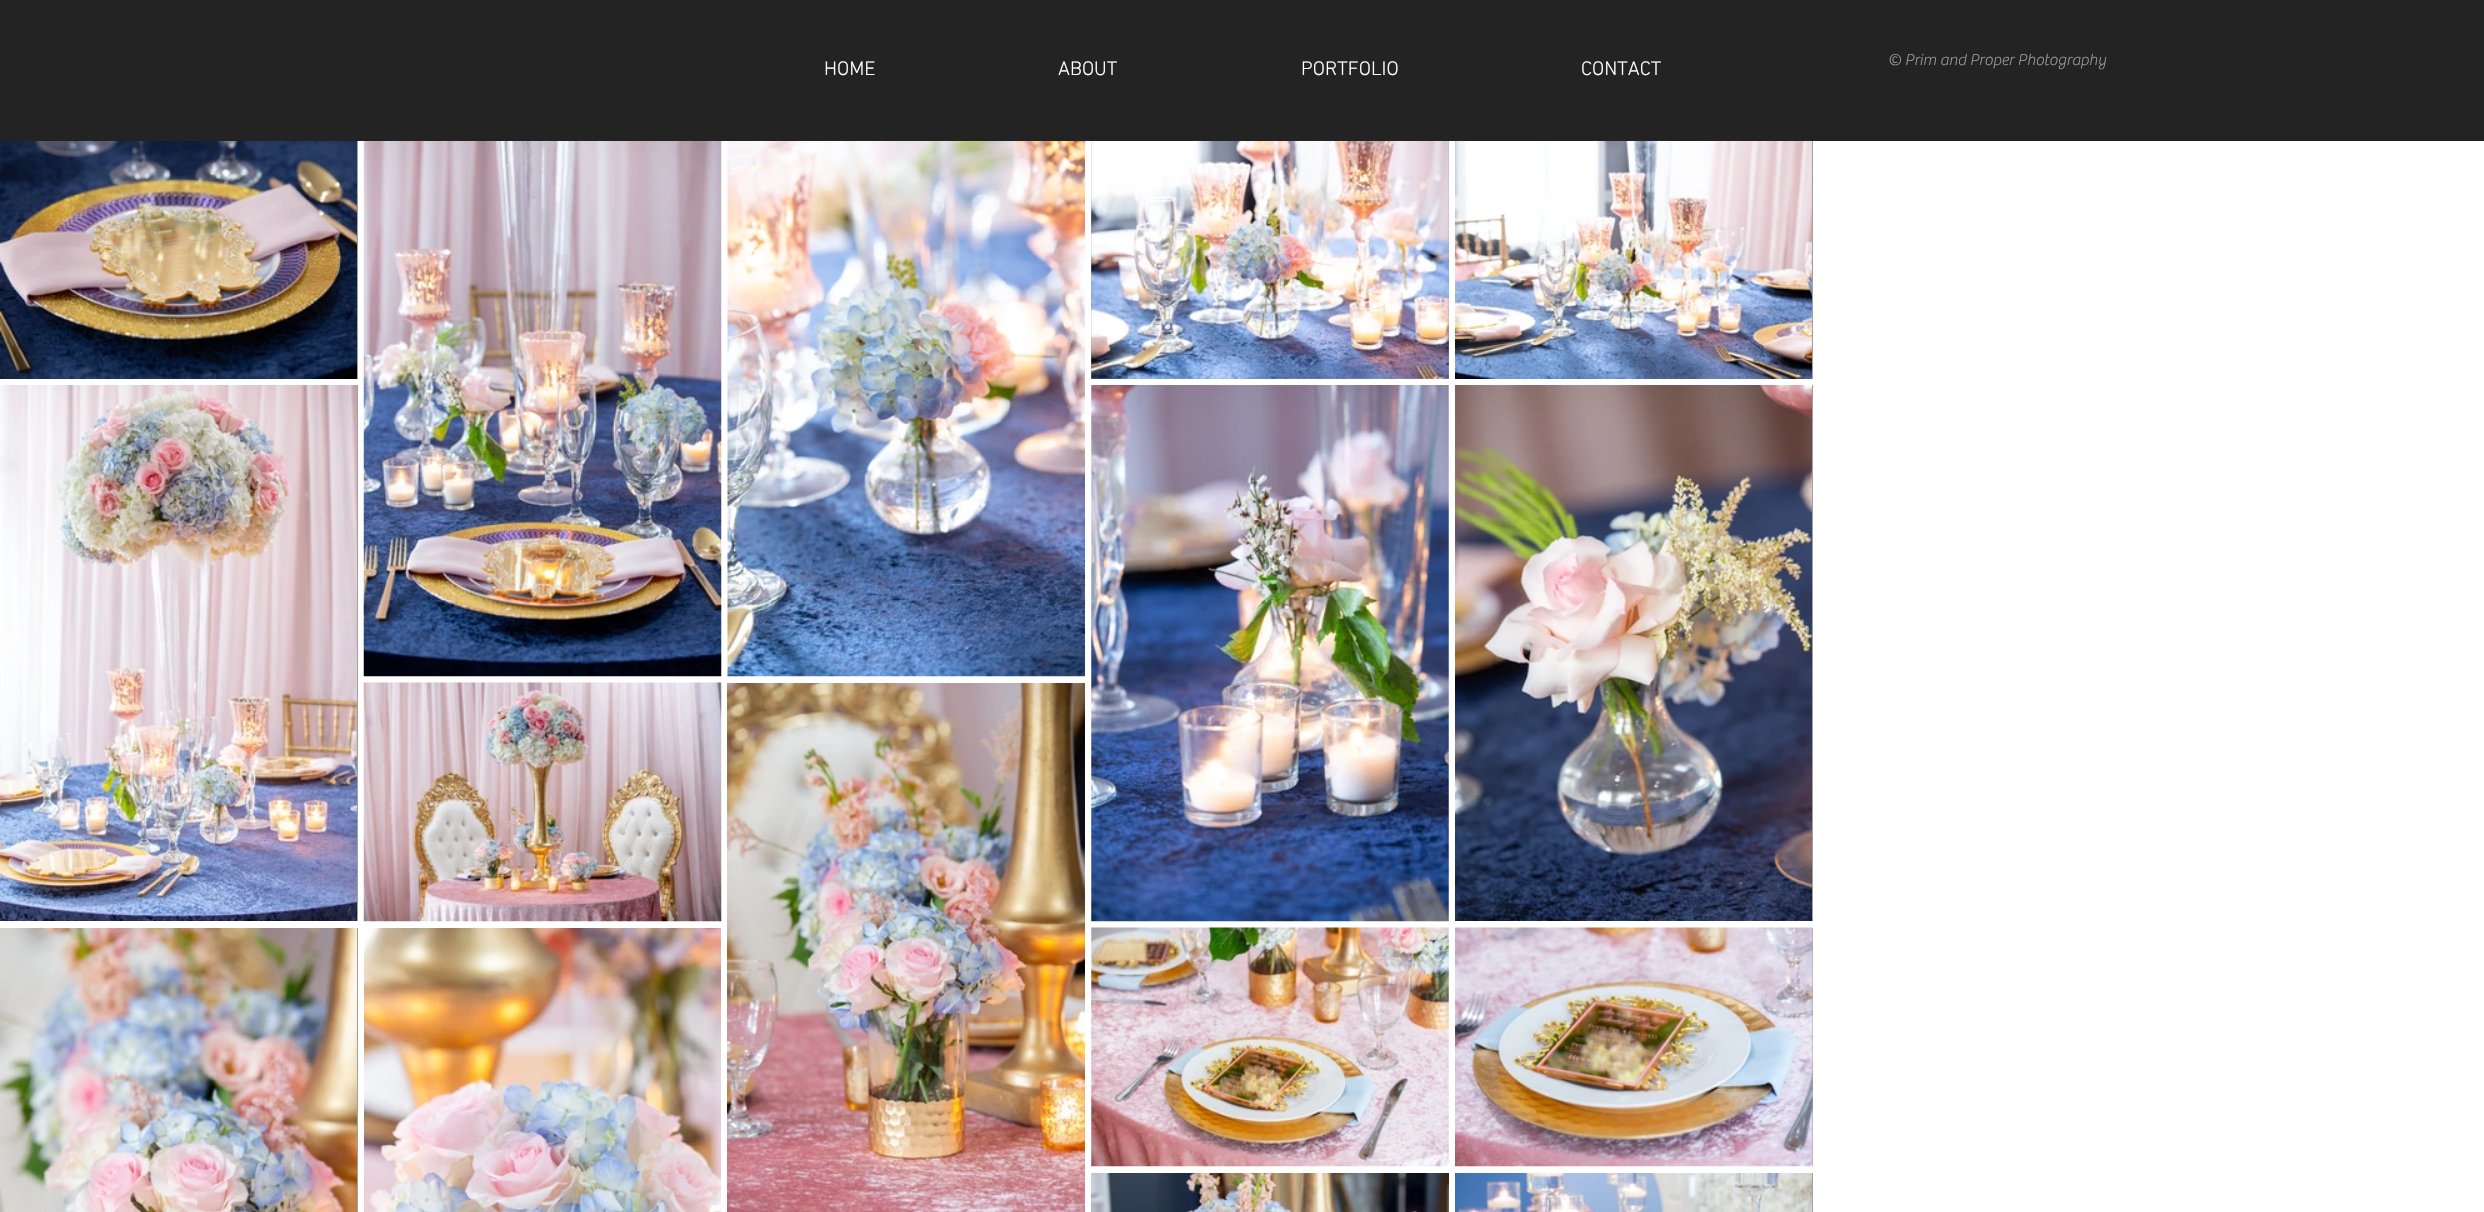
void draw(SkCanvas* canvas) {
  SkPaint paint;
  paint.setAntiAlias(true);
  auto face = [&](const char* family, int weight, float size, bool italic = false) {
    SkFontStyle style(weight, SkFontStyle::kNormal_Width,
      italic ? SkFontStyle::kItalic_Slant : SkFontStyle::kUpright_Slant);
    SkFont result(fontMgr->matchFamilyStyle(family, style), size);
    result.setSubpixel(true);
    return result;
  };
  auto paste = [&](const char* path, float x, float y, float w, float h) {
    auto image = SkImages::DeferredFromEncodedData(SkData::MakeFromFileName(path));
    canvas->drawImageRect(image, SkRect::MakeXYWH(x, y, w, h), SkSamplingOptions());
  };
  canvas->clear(0xffffffff);
  paint.setColor(0xff242323);
  canvas->drawRect(SkRect::MakeXYWH(0, 0, 2484, 141), paint);
  paint.setColor(0xffa0a09f);
  canvas->drawRect(SkRect::MakeXYWH(357, 141, 1, 238), paint);
  paste("img/1.png", 0, 141, 357, 238);
  paste("img/2.png", 363, 141, 359, 536);
  paste("img/3.png", 727, 141, 358, 536);
  canvas->drawRect(SkRect::MakeXYWH(1091, 141, 358, 238), paint);
  paste("img/4.png", 1091, 141, 358, 238);
  canvas->drawRect(SkRect::MakeXYWH(1812, 141, 1, 238), paint);
  paste("img/5.png", 1455, 141, 357, 238);
  canvas->drawRect(SkRect::MakeXYWH(357, 385, 1, 536), paint);
  paste("img/6.png", 0, 385, 357, 536);
  paste("img/7.png", 363, 682, 359, 240);
  paste("img/8.png", 727, 683, 358, 529);
  paste("img/9.png", 1091, 385, 358, 537);
  canvas->drawRect(SkRect::MakeXYWH(1812, 385, 1, 536), paint);
  paste("img/10.png", 1455, 385, 357, 536);
  canvas->drawRect(SkRect::MakeXYWH(357, 928, 1, 284), paint);
  paste("img/11.png", 0, 928, 357, 284);
  paste("img/12.png", 364, 928, 357, 284);
  paste("img/13.png", 1091, 927, 358, 240);
  canvas->drawRect(SkRect::MakeXYWH(1812, 928, 1, 238), paint);
  paste("img/14.png", 1455, 927, 358, 240);
  paste("img/15.png", 1091, 1173, 358, 39);
  canvas->drawRect(SkRect::MakeXYWH(1812, 1173, 1, 39), paint);
  paste("img/16.png", 1455, 1173, 357, 39);
  auto f0 = face("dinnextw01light", 300, 20);
  paint.setColor(0xffffffff);
  {
    const struct { const char* s; float x, y; } items[] = {
      {"HOME", 824, 75},
      {"ABOUT", 1058, 75},
      {"PORTFOLIO", 1301, 75},
      {"CONTACT", 1581, 75},
    };
    for (auto [s, x, y] : items) {
      canvas->drawString(s, x, y, f0, paint);
    }
  }
  auto f1 = face("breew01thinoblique", 100, 16.25f);
  paint.setColor(0xffa0a09f);
  canvas->drawString("© Prim and Proper Photography", 1888, 65, f1, paint);
}
